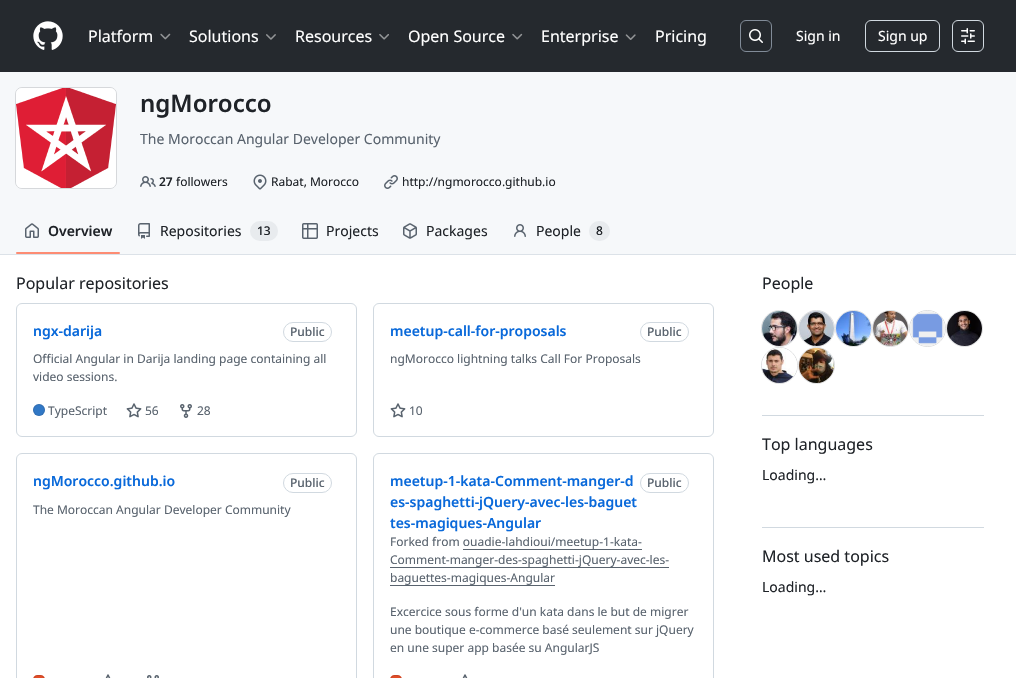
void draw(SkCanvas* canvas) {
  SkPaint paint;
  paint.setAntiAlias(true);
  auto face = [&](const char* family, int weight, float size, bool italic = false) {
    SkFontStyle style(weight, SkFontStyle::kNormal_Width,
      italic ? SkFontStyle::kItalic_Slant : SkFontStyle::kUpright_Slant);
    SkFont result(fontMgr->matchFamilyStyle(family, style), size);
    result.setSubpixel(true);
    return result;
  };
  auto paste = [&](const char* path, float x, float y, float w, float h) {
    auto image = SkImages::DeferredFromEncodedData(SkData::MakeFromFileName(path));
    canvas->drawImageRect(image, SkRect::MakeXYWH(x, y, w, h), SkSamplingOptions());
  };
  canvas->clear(0xffffffff);
  paint.setColor(0xff25292e);
  canvas->drawRect(SkRect::MakeXYWH(0, 0, 1016, 72), paint);
  paste("img/1.png", 33, 21, 30, 29);
  paste("img/2.png", 160, 33, 11, 7);
  paste("img/3.png", 266, 34, 10, 6);
  paste("img/4.png", 379, 34, 10, 6);
  paste("img/5.png", 512, 33, 11, 7);
  paste("img/6.png", 625, 34, 11, 6);
  paint.setStroke(true);
  paint.setStrokeWidth(1);
  paint.setColor(0xff818b98);
  canvas->drawRoundRect(SkRect::MakeXYWH(740.5f, 20.5f, 31, 31), 5.5f, 5.5f, paint);
  paste("img/7.png", 749, 29, 14, 14);
  paint.setColor(0xffd1d9e0);
  canvas->drawRoundRect(SkRect::MakeXYWH(865.5f, 20.5f, 74, 31), 5.5f, 5.5f, paint);
  canvas->drawRoundRect(SkRect::MakeXYWH(952.5f, 20.5f, 31, 31), 5.5f, 5.5f, paint);
  paste("img/8.png", 961, 28, 14, 16);
  paint.setStroke(false);
  paint.setColor(0xfff6f8fa);
  canvas->drawRect(SkRect::MakeXYWH(0, 72, 1016, 182), paint);
  paint.setStroke(true);
  paint.setColor(0xffd6d8db);
  canvas->drawRoundRect(SkRect::MakeXYWH(15.5f, 87.5f, 101, 101), 6.5f, 6.5f, paint);
  paste("img/9.png", 16, 88, 100, 100);
  paste("img/10.png", 140, 176, 16, 11);
  paste("img/11.png", 253, 174, 14, 16);
  paste("img/12.png", 384, 175, 14, 14);
  paint.setStroke(false);
  paint.setColor(0xffdce2e8);
  canvas->drawRect(SkRect::MakeXYWH(0, 254, 1016, 1), paint);
  paste("img/13.png", 25, 223, 14, 15);
  paint.setColor(0xfffd8c73);
  canvas->drawRoundRect(SkRect::MakeXYWH(16, 252, 104, 2), 1, 1, paint);
  paste("img/14.png", 138, 223, 12, 16);
  paint.setColor(0xffe8ebee);
  canvas->drawRoundRect(SkRect::MakeXYWH(250, 221, 28, 20), 10, 10, paint);
  paste("img/15.png", 302, 223, 16, 16);
  paste("img/16.png", 403, 223, 14, 16);
  paste("img/17.png", 514, 224, 12, 13);
  canvas->drawRoundRect(SkRect::MakeXYWH(589, 221, 21, 20), 10, 10, paint);
  paint.setStroke(true);
  paint.setColor(0xffd1d9e0);
  canvas->drawRoundRect(SkRect::MakeXYWH(16.5f, 303.5f, 340, 133), 5.5f, 5.5f, paint);
  canvas->drawRoundRect(SkRect::MakeXYWH(283.5f, 322.5f, 48, 19), 9.5f, 9.5f, paint);
  paint.setStroke(false);
  paint.setColor(0xff3178c6);
  canvas->drawCircle(39, 410, 6, paint);
  paint.setStroke(true);
  paint.setColor(0x261f2328);
  canvas->drawCircle(39, 410, 5.5f, paint);
  paste("img/18.png", 126, 403, 16, 15);
  paste("img/19.png", 180, 404, 12, 14);
  paint.setColor(0xffd1d9e0);
  canvas->drawRoundRect(SkRect::MakeXYWH(373.5f, 303.5f, 340, 133), 5.5f, 5.5f, paint);
  canvas->drawRoundRect(SkRect::MakeXYWH(640.5f, 322.5f, 48, 19), 9.5f, 9.5f, paint);
  paste("img/18.png", 390, 403, 16, 15);
  canvas->drawRoundRect(SkRect::MakeXYWH(16.5f, 453.5f, 340, 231), 5.5f, 5.5f, paint);
  canvas->drawRoundRect(SkRect::MakeXYWH(283.5f, 473.5f, 48, 19), 9.5f, 9.5f, paint);
  paint.setStroke(false);
  paint.setColor(0xffe34c26);
  canvas->drawRoundRect(SkRect::MakeXYWH(33, 675, 12, 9), 6, 6, paint);
  paint.setStroke(true);
  paint.setColor(0x261f2328);
  canvas->drawRoundRect(SkRect::MakeXYWH(33.5f, 675.5f, 11, 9), 5.5f, 5.5f, paint);
  paste("img/20.png", 105, 674, 6, 4);
  paste("img/21.png", 147, 675, 12, 3);
  paint.setColor(0xffd1d9e0);
  canvas->drawRoundRect(SkRect::MakeXYWH(373.5f, 453.5f, 340, 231), 5.5f, 5.5f, paint);
  canvas->drawRoundRect(SkRect::MakeXYWH(640.5f, 473.5f, 48, 19), 9.5f, 9.5f, paint);
  paint.setStroke(false);
  {
    const struct { float x, y, w, h; SkColor color; } items[] = {
      {463, 549, 179, 1, 0xff59636e},
      {390, 567, 279, 1, 0xff59636e},
      {390, 585, 165, 1, 0xff59636e},
    };
    for (auto [x, y, w, h, color] : items) {
      paint.setColor(color);
      canvas->drawRect(SkRect::MakeXYWH(x, y, w, h), paint);
    }
  }
  paint.setColor(0xffe34c26);
  canvas->drawRoundRect(SkRect::MakeXYWH(390, 675, 12, 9), 6, 6, paint);
  paint.setStroke(true);
  paint.setColor(0x261f2328);
  canvas->drawRoundRect(SkRect::MakeXYWH(390.5f, 675.5f, 11, 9), 5.5f, 5.5f, paint);
  paste("img/20.png", 462, 674, 6, 4);
  paint.setColor(0xffdddedf);
  canvas->drawCircle(779.5f, 328.5f, 18, paint);
  paint.setStroke(false);
  paint.setColor(0xffffffff);
  canvas->drawCircle(779.5f, 328.5f, 17.5f, paint);
  paste("img/22.png", 762, 311, 35, 35);
  paint.setStroke(true);
  paint.setColor(0xffdddedf);
  canvas->drawCircle(816.5f, 328.5f, 18, paint);
  paint.setStroke(false);
  paint.setColor(0xffffffff);
  canvas->drawCircle(816.5f, 328.5f, 17.5f, paint);
  paste("img/23.png", 799, 311, 35, 35);
  paint.setStroke(true);
  paint.setColor(0xffdddedf);
  canvas->drawCircle(853.5f, 328.5f, 18, paint);
  paint.setStroke(false);
  paint.setColor(0xffffffff);
  canvas->drawCircle(853.5f, 328.5f, 17.5f, paint);
  paste("img/24.png", 836, 311, 35, 35);
  paint.setStroke(true);
  paint.setColor(0xffdddedf);
  canvas->drawCircle(890.5f, 328.5f, 18, paint);
  paint.setStroke(false);
  paint.setColor(0xffffffff);
  canvas->drawCircle(890.5f, 328.5f, 17.5f, paint);
  paste("img/25.png", 873, 311, 35, 35);
  paint.setStroke(true);
  paint.setColor(0xffdddedf);
  canvas->drawCircle(927.5f, 328.5f, 18, paint);
  paint.setStroke(false);
  paint.setColor(0xffffffff);
  canvas->drawCircle(927.5f, 328.5f, 17.5f, paint);
  paste("img/26.png", 910, 311, 35, 35);
  paint.setStroke(true);
  paint.setColor(0xffdddedf);
  canvas->drawCircle(964.5f, 328.5f, 18, paint);
  paint.setStroke(false);
  paint.setColor(0xffffffff);
  canvas->drawCircle(964.5f, 328.5f, 17.5f, paint);
  paste("img/27.png", 947, 311, 35, 35);
  paint.setStroke(true);
  paint.setColor(0xffdddedf);
  canvas->drawCircle(779.5f, 365.5f, 18, paint);
  paint.setStroke(false);
  paint.setColor(0xffffffff);
  canvas->drawCircle(779.5f, 365.5f, 17.5f, paint);
  paste("img/28.png", 762, 348, 35, 35);
  paint.setStroke(true);
  paint.setColor(0xffdddedf);
  canvas->drawCircle(816.5f, 365.5f, 18, paint);
  paint.setStroke(false);
  paint.setColor(0xffffffff);
  canvas->drawCircle(816.5f, 365.5f, 17.5f, paint);
  paste("img/29.png", 799, 348, 35, 35);
  paint.setColor(0xffd1d9e0);
  canvas->drawRect(SkRect::MakeXYWH(762, 415, 222, 1), paint);
  canvas->drawRect(SkRect::MakeXYWH(762, 527, 222, 1), paint);
  auto f0 = face("Noto Sans", 400, 16);
  paint.setColor(0xffffffff);
  {
    const struct { const char* s; float x, y; } items[] = {
      {"Platform", 88, 42},
      {"Solutions", 189, 42},
      {"Resources", 295, 42},
      {"Open Source", 408, 42},
      {"Enterprise", 541, 42},
      {"Pricing", 655, 42},
    };
    for (auto [s, x, y] : items) {
      canvas->drawString(s, x, y, f0, paint);
    }
  }
  auto f1 = face("Noto Sans", 400, 14);
  canvas->drawString("Sign in", 796, 41, f1, paint);
  canvas->drawString("Sign up", 878, 41, f1, paint);
  auto f2 = face("Noto Sans", 600, 24);
  paint.setColor(0xff1f2328);
  canvas->drawString("ngMorocco", 140, 112, f2, paint);
  paint.setColor(0xff59636e);
  canvas->drawString("The Moroccan Angular Developer Community", 140, 144, f1, paint);
  auto f3 = face("Noto Sans", 600, 12);
  paint.setColor(0xff1f2328);
  canvas->drawString("27", 159, 186, f3, paint);
  auto f4 = face("Noto Sans", 400, 12);
  {
    const struct { const char* s; float x, y; } items[] = {
      {"followers", 176, 186},
      {"Rabat, Morocco", 271, 186},
      {"http://ngmorocco.github.io", 402, 186},
    };
    for (auto [s, x, y] : items) {
      canvas->drawString(s, x, y, f4, paint);
    }
  }
  auto f5 = face("Noto Sans", 600, 14);
  canvas->drawString("Overview", 48, 236, f5, paint);
  canvas->drawString("Repositories", 160, 236, f1, paint);
  auto f6 = face("Noto Sans", 500, 12);
  canvas->drawString("13", 257, 235, f6, paint);
  {
    const struct { const char* s; float x, y; } items[] = {
      {"Projects", 326, 236},
      {"Packages", 426, 236},
      {"People", 536, 236},
    };
    for (auto [s, x, y] : items) {
      canvas->drawString(s, x, y, f1, paint);
    }
  }
  canvas->drawString("8", 596, 235, f6, paint);
  canvas->drawString("Popular repositories", 16, 289, f0, paint);
  paint.setColor(0xff0969da);
  canvas->drawString("ngx-darija", 33, 336, f5, paint);
  paint.setColor(0xff59636e);
  canvas->drawString("Public", 290, 336, f6, paint);
  {
    const struct { const char* s; float x, y; } items[] = {
      {"Official Angular in Darija landing page containing all", 33, 363},
      {"video sessions.", 33, 381},
      {"TypeScript", 48, 415},
      {"56", 145, 415},
      {"28", 197, 415},
    };
    for (auto [s, x, y] : items) {
      canvas->drawString(s, x, y, f4, paint);
    }
  }
  paint.setColor(0xff0969da);
  canvas->drawString("meetup-call-for-proposals", 390, 336, f5, paint);
  paint.setColor(0xff59636e);
  canvas->drawString("Public", 647, 336, f6, paint);
  canvas->drawString("ngMorocco lightning talks Call For Proposals", 390, 363, f4, paint);
  canvas->drawString("10", 409, 415, f4, paint);
  paint.setColor(0xff0969da);
  canvas->drawString("ngMorocco.github.io", 33, 486, f5, paint);
  paint.setColor(0xff59636e);
  canvas->drawString("Public", 290, 487, f6, paint);
  canvas->drawString("The Moroccan Angular Developer Community", 33, 514, f4, paint);
  paint.setColor(0xff0969da);
  {
    const struct { const char* s; float x, y; } items[] = {
      {"meetup-1-kata-Comment-manger-d", 390, 486},
      {"es-spaghetti-jQuery-avec-les-baguet", 390, 507},
      {"tes-magiques-Angular", 390, 528},
    };
    for (auto [s, x, y] : items) {
      canvas->drawString(s, x, y, f5, paint);
    }
  }
  paint.setColor(0xff59636e);
  canvas->drawString("Public", 647, 487, f6, paint);
  {
    const struct { const char* s; float x, y; } items[] = {
      {"Forked from ouadie-lahdioui/meetup-1-kata-", 390, 546},
      {"Comment-manger-des-spaghetti-jQuery-avec-les-", 390, 564},
      {"baguettes-magiques-Angular", 390, 582},
      {"Excercice sous forme d'un kata dans le but de migrer", 390, 616},
      {"une boutique e-commerce basé seulement sur jQuery", 390, 634},
      {"en une super app basée su AngularJS", 390, 652},
    };
    for (auto [s, x, y] : items) {
      canvas->drawString(s, x, y, f4, paint);
    }
  }
  paint.setColor(0xff1f2328);
  canvas->drawString("People", 762, 289, f0, paint);
  canvas->drawString("Top languages", 762, 450, f0, paint);
  canvas->drawString("Loading…", 762, 480, f1, paint);
  canvas->drawString("Most used topics", 762, 562, f0, paint);
  canvas->drawString("Loading…", 762, 592, f1, paint);
}
